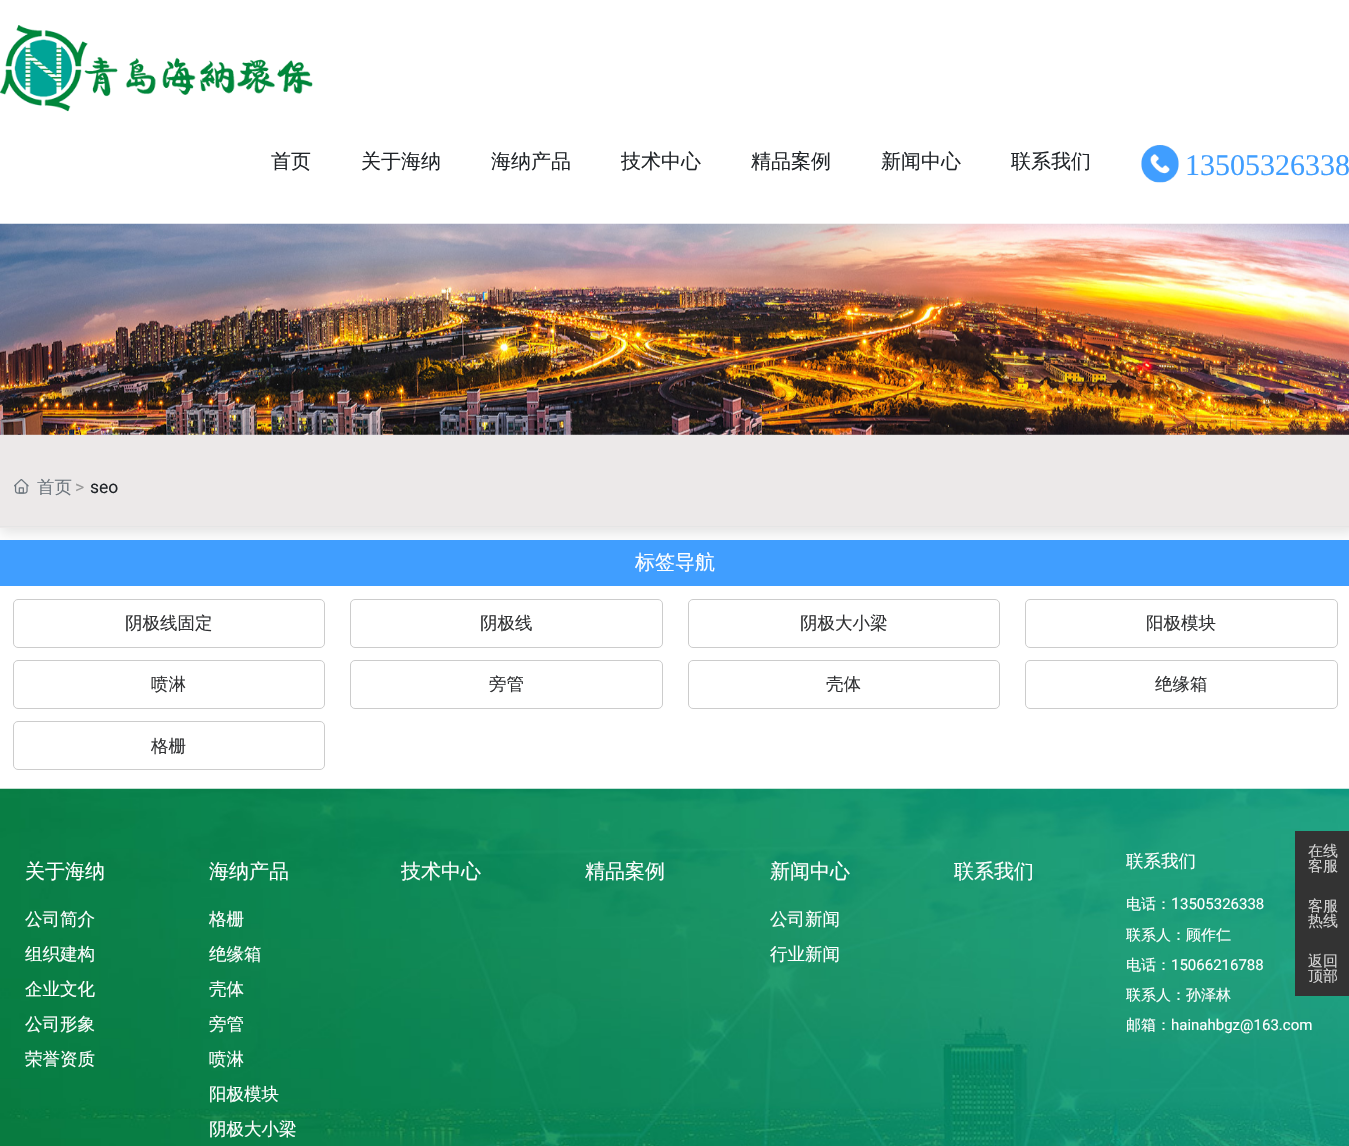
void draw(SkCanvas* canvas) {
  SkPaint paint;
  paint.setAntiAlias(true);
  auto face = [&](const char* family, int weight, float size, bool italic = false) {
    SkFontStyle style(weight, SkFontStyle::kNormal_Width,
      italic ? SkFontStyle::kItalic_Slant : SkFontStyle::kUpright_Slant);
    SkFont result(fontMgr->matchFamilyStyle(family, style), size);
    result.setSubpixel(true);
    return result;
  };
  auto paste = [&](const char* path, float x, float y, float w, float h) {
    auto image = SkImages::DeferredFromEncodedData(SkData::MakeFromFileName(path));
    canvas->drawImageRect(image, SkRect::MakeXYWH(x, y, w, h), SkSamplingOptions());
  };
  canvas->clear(0xffffffff);
  paste("img/1.png", 0, 25, 313, 87);
  paste("img/2.png", 1141, 145, 38, 38);
  paint.setColor(0xffe4e4e4);
  paint.setMaskFilter(SkMaskFilter::MakeBlur(kNormal_SkBlurStyle, 6));
  canvas->drawRect(SkRect::MakeXYWH(0, 435, 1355, 98), paint);
  paint.setMaskFilter(nullptr);
  paste("img/3.png", 0, 223, 1349, 212);
  paint.setColor(0xffece9e9);
  canvas->drawRect(SkRect::MakeXYWH(0, 435, 1349, 93), paint);
  paint.setColor(0xffe5e5e5);
  canvas->drawRect(SkRect::MakeXYWH(0, 526, 1349, 1), paint);
  paste("img/4.png", 14, 479, 15, 15);
  paint.setColor(0xff409eff);
  canvas->drawRect(SkRect::MakeXYWH(0, 540, 1349, 46), paint);
  paint.setStroke(true);
  paint.setStrokeWidth(1);
  paint.setColor(0xffcccccc);
  canvas->drawRoundRect(SkRect::MakeXYWH(13.5f, 599.5f, 311, 48), 4.5f, 4.5f, paint);
  canvas->drawRoundRect(SkRect::MakeXYWH(350.5f, 599.5f, 312, 48), 4.5f, 4.5f, paint);
  canvas->drawRoundRect(SkRect::MakeXYWH(688.5f, 599.5f, 311, 48), 4.5f, 4.5f, paint);
  canvas->drawRoundRect(SkRect::MakeXYWH(1025.5f, 599.5f, 312, 48), 4.5f, 4.5f, paint);
  canvas->drawRoundRect(SkRect::MakeXYWH(13.5f, 660.5f, 311, 48), 4.5f, 4.5f, paint);
  canvas->drawRoundRect(SkRect::MakeXYWH(350.5f, 660.5f, 312, 48), 4.5f, 4.5f, paint);
  canvas->drawRoundRect(SkRect::MakeXYWH(688.5f, 660.5f, 311, 48), 4.5f, 4.5f, paint);
  canvas->drawRoundRect(SkRect::MakeXYWH(1025.5f, 660.5f, 312, 48), 4.5f, 4.5f, paint);
  canvas->drawRoundRect(SkRect::MakeXYWH(13.5f, 721.5f, 311, 48), 4.5f, 4.5f, paint);
  paste("img/5.png", 0, 788, 1349, 358);
  paint.setStroke(false);
  paint.setColor(0xff333333);
  canvas->drawRect(SkRect::MakeXYWH(1295, 831, 54, 165), paint);
  auto f0 = face("WenQuanYi Zen Hei", 500, 20);
  paint.setColor(0xff212529);
  {
    const struct { const char* s; float x, y; } items[] = {
      {"首页", 271, 168},
      {"关于海纳", 361, 168},
      {"海纳产品", 491, 168},
      {"技术中心", 621, 168},
      {"精品案例", 751, 168},
      {"新闻中心", 881, 168},
      {"联系我们", 1011, 168},
    };
    for (auto [s, x, y] : items) {
      canvas->drawString(s, x, y, f0, paint);
    }
  }
  auto f1 = face("Liberation Serif", 400, 30);
  paint.setColor(0xff409eff);
  canvas->drawString("13505326338", 1185, 175, f1, paint);
  auto f2 = face("WenQuanYi Zen Hei", 500, 17.5f);
  paint.setColor(0xff6c757d);
  canvas->drawString("首页", 37, 493, f2, paint);
  auto f3 = face("Roboto", 400, 17.5f);
  paint.setColor(0xff999999);
  canvas->drawString(">", 75, 493, f3, paint);
  paint.setColor(0xff212529);
  canvas->drawString("seo", 90, 493, f3, paint);
  paint.setColor(0xffffffff);
  canvas->drawString("标签导航", 635, 569, f0, paint);
  paint.setColor(0xff303133);
  {
    const struct { const char* s; float x, y; } items[] = {
      {"阴极线固定", 125, 629},
      {"阴极线", 480, 629},
      {"阴极大小梁", 800, 629},
      {"阳极模块", 1146, 629},
      {"喷淋", 151, 690},
      {"旁管", 489, 690},
      {"壳体", 826, 690},
      {"绝缘箱", 1155, 690},
      {"格栅", 151, 752},
    };
    for (auto [s, x, y] : items) {
      canvas->drawString(s, x, y, f2, paint);
    }
  }
  paint.setColor(0xffffffff);
  canvas->drawString("关于海纳", 25, 878, f0, paint);
  {
    const struct { const char* s; float x, y; } items[] = {
      {"公司简介", 25, 925},
      {"组织建构", 25, 960},
      {"企业文化", 25, 995},
      {"公司形象", 25, 1030},
      {"荣誉资质", 25, 1065},
    };
    for (auto [s, x, y] : items) {
      canvas->drawString(s, x, y, f2, paint);
    }
  }
  canvas->drawString("海纳产品", 209, 878, f0, paint);
  {
    const struct { const char* s; float x, y; } items[] = {
      {"格栅", 209, 925},
      {"绝缘箱", 209, 960},
      {"壳体", 209, 995},
      {"旁管", 209, 1030},
      {"喷淋", 209, 1065},
      {"阳极模块", 209, 1100},
      {"阴极大小梁", 209, 1135},
    };
    for (auto [s, x, y] : items) {
      canvas->drawString(s, x, y, f2, paint);
    }
  }
  {
    const struct { const char* s; float x, y; } items[] = {
      {"技术中心", 401, 878},
      {"精品案例", 585, 878},
      {"新闻中心", 770, 878},
    };
    for (auto [s, x, y] : items) {
      canvas->drawString(s, x, y, f0, paint);
    }
  }
  canvas->drawString("公司新闻", 770, 925, f2, paint);
  canvas->drawString("行业新闻", 770, 960, f2, paint);
  canvas->drawString("联系我们", 954, 878, f0, paint);
  canvas->drawString("联系我们", 1126, 867, f2, paint);
  auto f4 = face("WenQuanYi Zen Hei", 500, 15);
  canvas->drawString("电话：", 1126, 909, f4, paint);
  auto f5 = face("Roboto", 400, 16);
  canvas->drawString("1", 1171, 909, f5, paint);
  auto f6 = face("Roboto", 400, 15);
  canvas->drawString("3505326338", 1180, 909, f6, paint);
  canvas->drawString("联系人：顾作仁", 1126, 940, f4, paint);
  canvas->drawString("电话：", 1126, 970, f4, paint);
  canvas->drawString("15066216788", 1171, 970, f6, paint);
  canvas->drawString("联系人：孙泽林", 1126, 1000, f4, paint);
  canvas->drawString("邮箱：", 1126, 1030, f4, paint);
  canvas->drawString("hainahbgz@163.com", 1171, 1030, f6, paint);
  paint.setColor(0xffd6d6d6);
  {
    const struct { const char* s; float x, y; } items[] = {
      {"在线", 1308, 856},
      {"客服", 1308, 871},
      {"客服", 1308, 911},
      {"热线", 1308, 926},
      {"返回", 1308, 966},
      {"顶部", 1308, 981},
    };
    for (auto [s, x, y] : items) {
      canvas->drawString(s, x, y, f4, paint);
    }
  }
}
